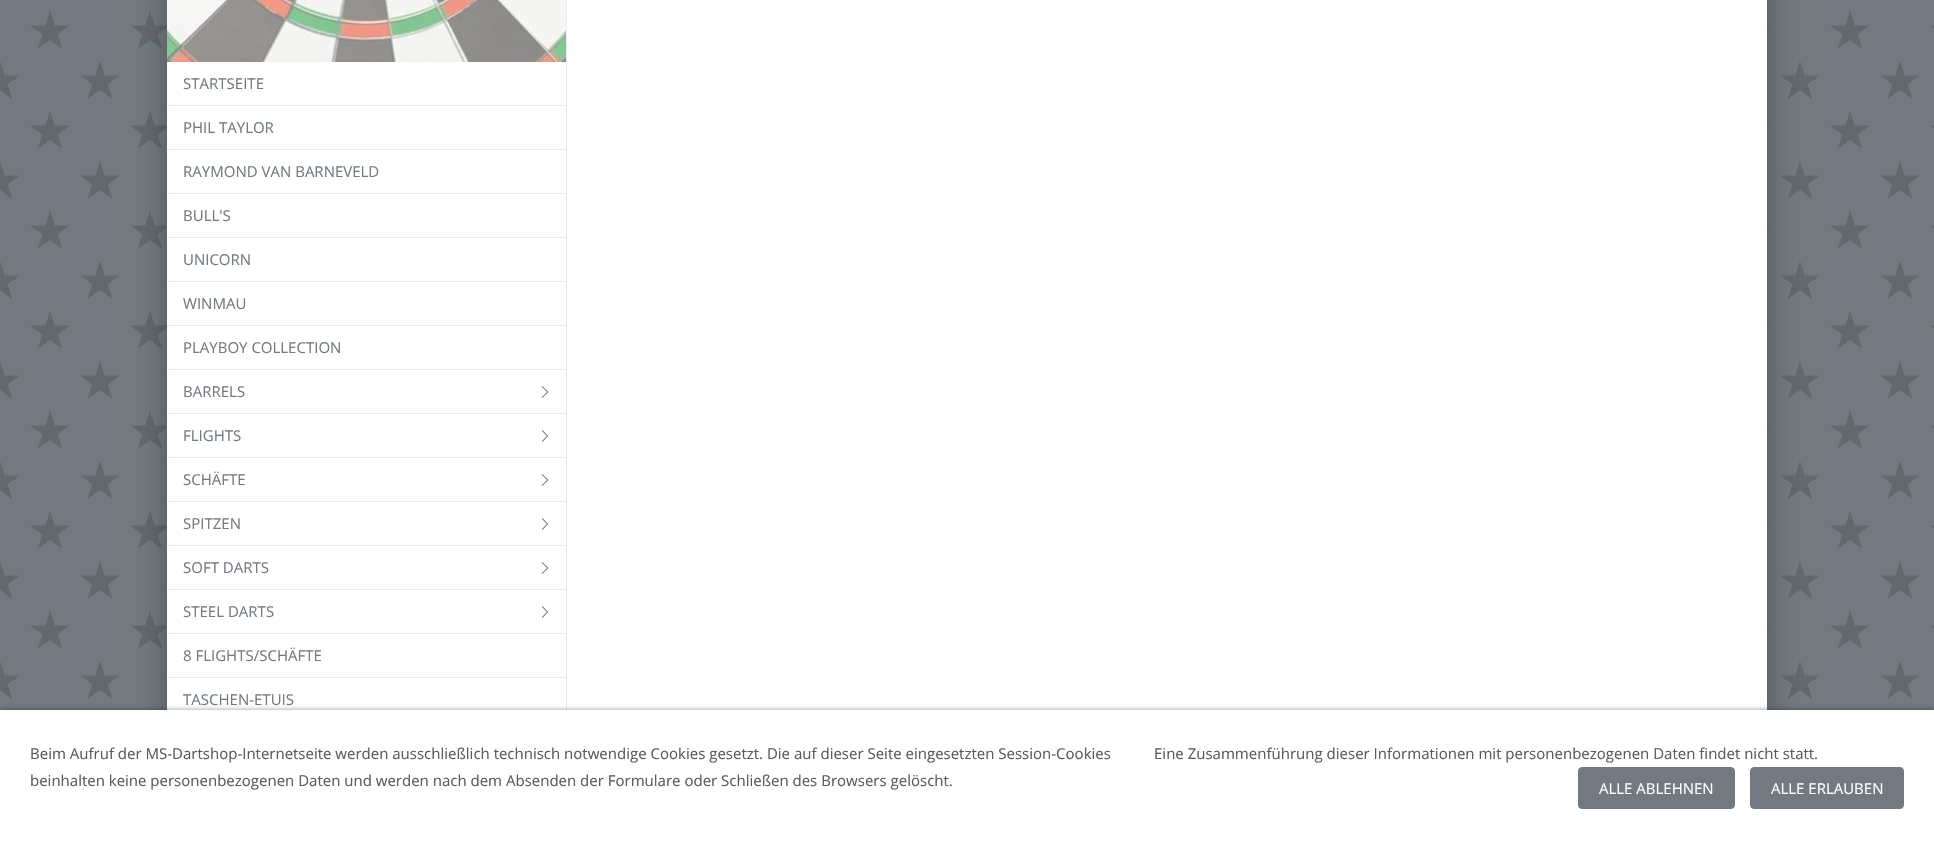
void draw(SkCanvas* canvas) {
  SkPaint paint;
  paint.setAntiAlias(true);
  auto face = [&](const char* family, int weight, float size, bool italic = false) {
    SkFontStyle style(weight, SkFontStyle::kNormal_Width,
      italic ? SkFontStyle::kItalic_Slant : SkFontStyle::kUpright_Slant);
    SkFont result(fontMgr->matchFamilyStyle(family, style), size);
    result.setSubpixel(true);
    return result;
  };
  auto paste = [&](const char* path, float x, float y, float w, float h) {
    auto image = SkImages::DeferredFromEncodedData(SkData::MakeFromFileName(path));
    canvas->drawImageRect(image, SkRect::MakeXYWH(x, y, w, h), SkSamplingOptions());
  };
  canvas->clear(0xff737980);
  paste("img/1.png", 0, 11, 1934, 688);
  paint.setColor(0x4d000000);
  paint.setMaskFilter(SkMaskFilter::MakeBlur(kNormal_SkBlurStyle, 15));
  canvas->drawRect(SkRect::MakeXYWH(167, -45, 1600, 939), paint);
  paint.setMaskFilter(nullptr);
  paint.setColor(0xffffffff);
  canvas->drawRect(SkRect::MakeXYWH(167, 62, 399, 648), paint);
  paint.setColor(0xffebebed);
  canvas->drawRect(SkRect::MakeXYWH(566, 0, 1, 710), paint);
  paste("img/2.png", 167, 0, 399, 62);
  {
    const struct { float x, y, w, h; SkColor color; } items[] = {
      {167, 105, 399, 1, 0xffebebed},
      {167, 149, 399, 1, 0xffebebed},
      {167, 193, 399, 1, 0xffebebed},
      {167, 237, 399, 1, 0xffebebed},
      {167, 281, 399, 1, 0xffebebed},
      {167, 325, 399, 1, 0xffebebed},
      {167, 369, 399, 1, 0xffebebed},
      {167, 413, 399, 1, 0xffebebed},
    };
    for (auto [x, y, w, h, color] : items) {
      paint.setColor(color);
      canvas->drawRect(SkRect::MakeXYWH(x, y, w, h), paint);
    }
  }
  paste("img/3.png", 541, 386, 8, 12);
  canvas->drawRect(SkRect::MakeXYWH(167, 457, 399, 1), paint);
  paste("img/3.png", 541, 430, 8, 12);
  canvas->drawRect(SkRect::MakeXYWH(167, 501, 399, 1), paint);
  paste("img/3.png", 541, 474, 8, 12);
  canvas->drawRect(SkRect::MakeXYWH(167, 545, 399, 1), paint);
  paste("img/3.png", 541, 518, 8, 12);
  canvas->drawRect(SkRect::MakeXYWH(167, 589, 399, 1), paint);
  paste("img/3.png", 541, 562, 8, 12);
  canvas->drawRect(SkRect::MakeXYWH(167, 633, 399, 1), paint);
  paste("img/3.png", 541, 606, 8, 12);
  canvas->drawRect(SkRect::MakeXYWH(167, 677, 399, 1), paint);
  paint.setColor(0xffffffff);
  canvas->drawRect(SkRect::MakeXYWH(567, 0, 1200, 710), paint);
  paint.setColor(0x66000000);
  paint.setMaskFilter(SkMaskFilter::MakeBlur(kNormal_SkBlurStyle, 2.5f));
  canvas->drawRect(SkRect::MakeXYWH(0, 710, 1934, 139), paint);
  paint.setMaskFilter(nullptr);
  paint.setColor(0xffffffff);
  canvas->drawRect(SkRect::MakeXYWH(0, 710, 1934, 139), paint);
  paint.setColor(0xff737980);
  canvas->drawRoundRect(SkRect::MakeXYWH(1578.5f, 767.5f, 156, 41), 3.5f, 3.5f, paint);
  paint.setStroke(true);
  paint.setStrokeWidth(1);
  canvas->drawRoundRect(SkRect::MakeXYWH(1578.5f, 767.5f, 156, 41), 3.5f, 3.5f, paint);
  paint.setStroke(false);
  canvas->drawRoundRect(SkRect::MakeXYWH(1750.5f, 767.5f, 153, 41), 3.5f, 3.5f, paint);
  paint.setStroke(true);
  canvas->drawRoundRect(SkRect::MakeXYWH(1750.5f, 767.5f, 153, 41), 3.5f, 3.5f, paint);
  auto f0 = face("Open Sans", 400, 15);
  paint.setStroke(false);
  {
    const struct { const char* s; float x, y; } items[] = {
      {"STARTSEITE", 183, 89},
      {"PHIL TAYLOR", 183, 133},
      {"RAYMOND VAN BARNEVELD", 183, 177},
      {"BULL'S", 183, 221},
      {"UNICORN", 183, 265},
      {"WINMAU", 183, 309},
      {"PLAYBOY COLLECTION", 183, 353},
      {"BARRELS", 183, 397},
      {"FLIGHTS", 183, 441},
      {"SCHÄFTE", 183, 485},
      {"SPITZEN", 183, 529},
      {"SOFT DARTS", 183, 573},
      {"STEEL DARTS", 183, 617},
      {"8 FLIGHTS/SCHÄFTE", 183, 661},
      {"TASCHEN-ETUIS", 183, 705},
    };
    for (auto [s, x, y] : items) {
      canvas->drawString(s, x, y, f0, paint);
    }
  }
  paint.setColor(0xff5a5a5a);
  {
    const struct { const char* s; float x, y; } items[] = {
      {"Beim Aufruf der MS-Dartshop-Internetseite werden ausschließlich technisch notwendige Cookies gesetzt. Die auf dieser Seite eingesetzten Session-Cookies", 30, 759},
      {"beinhalten keine personenbezogenen Daten und werden nach dem Absenden der Formulare oder Schließen des Browsers gelöscht.", 30, 786},
      {"Eine Zusammenführung dieser Informationen mit personenbezogenen Daten findet nicht statt.", 1154, 759},
    };
    for (auto [s, x, y] : items) {
      canvas->drawString(s, x, y, f0, paint);
    }
  }
  paint.setColor(0xffffffff);
  canvas->drawString("ALLE ABLEHNEN", 1599, 794, f0, paint);
  canvas->drawString("ALLE ERLAUBEN", 1771, 794, f0, paint);
}
